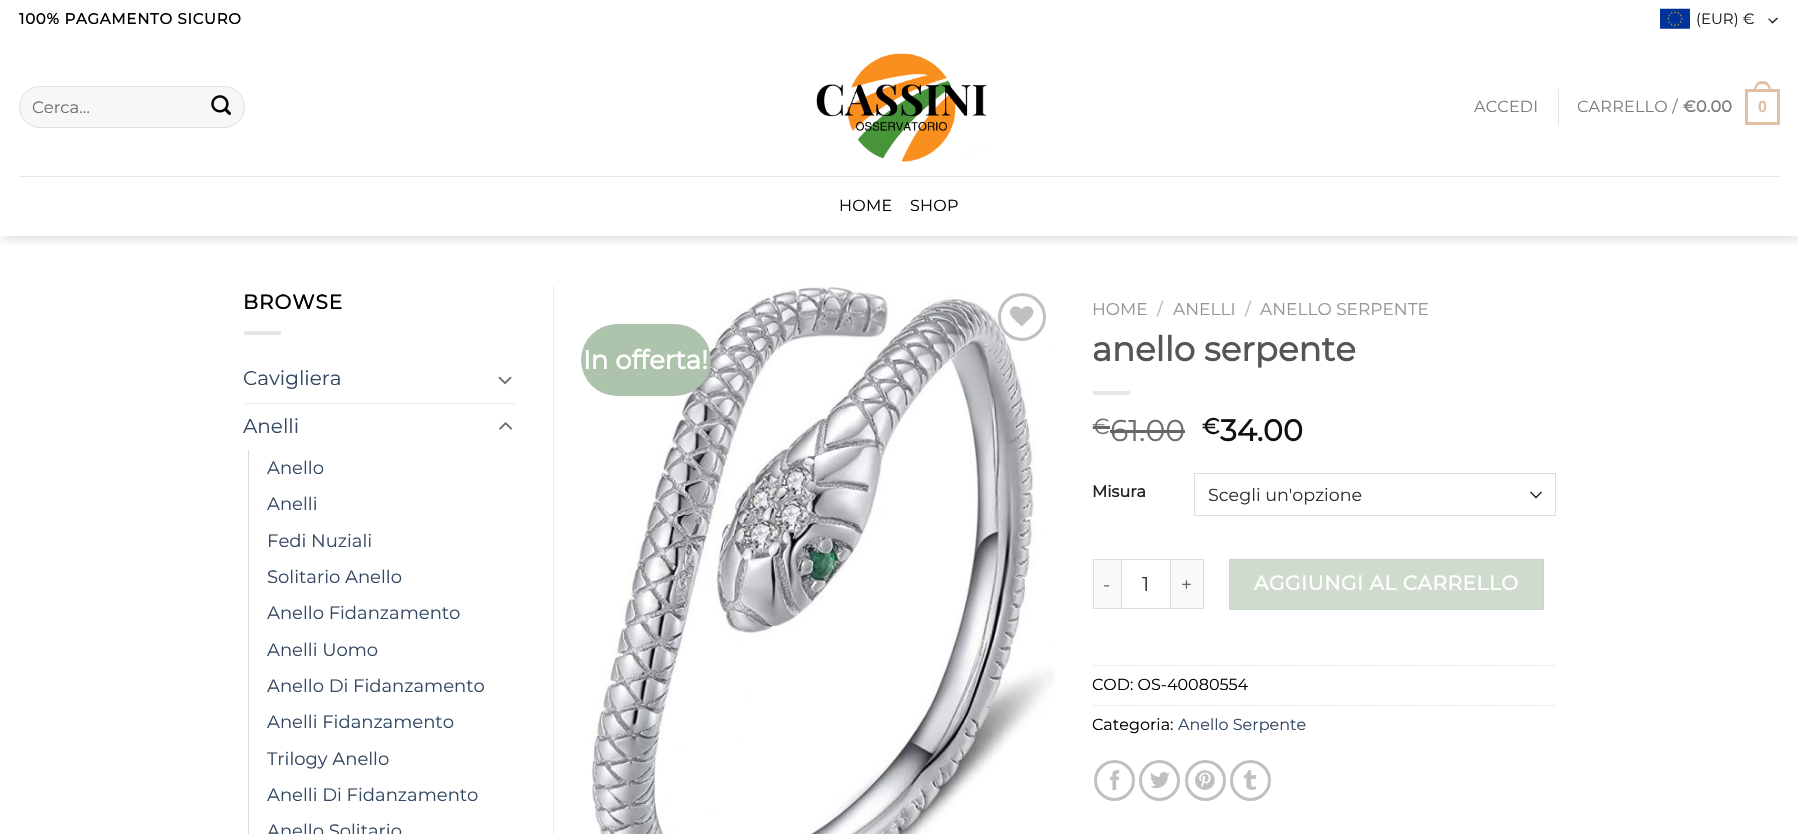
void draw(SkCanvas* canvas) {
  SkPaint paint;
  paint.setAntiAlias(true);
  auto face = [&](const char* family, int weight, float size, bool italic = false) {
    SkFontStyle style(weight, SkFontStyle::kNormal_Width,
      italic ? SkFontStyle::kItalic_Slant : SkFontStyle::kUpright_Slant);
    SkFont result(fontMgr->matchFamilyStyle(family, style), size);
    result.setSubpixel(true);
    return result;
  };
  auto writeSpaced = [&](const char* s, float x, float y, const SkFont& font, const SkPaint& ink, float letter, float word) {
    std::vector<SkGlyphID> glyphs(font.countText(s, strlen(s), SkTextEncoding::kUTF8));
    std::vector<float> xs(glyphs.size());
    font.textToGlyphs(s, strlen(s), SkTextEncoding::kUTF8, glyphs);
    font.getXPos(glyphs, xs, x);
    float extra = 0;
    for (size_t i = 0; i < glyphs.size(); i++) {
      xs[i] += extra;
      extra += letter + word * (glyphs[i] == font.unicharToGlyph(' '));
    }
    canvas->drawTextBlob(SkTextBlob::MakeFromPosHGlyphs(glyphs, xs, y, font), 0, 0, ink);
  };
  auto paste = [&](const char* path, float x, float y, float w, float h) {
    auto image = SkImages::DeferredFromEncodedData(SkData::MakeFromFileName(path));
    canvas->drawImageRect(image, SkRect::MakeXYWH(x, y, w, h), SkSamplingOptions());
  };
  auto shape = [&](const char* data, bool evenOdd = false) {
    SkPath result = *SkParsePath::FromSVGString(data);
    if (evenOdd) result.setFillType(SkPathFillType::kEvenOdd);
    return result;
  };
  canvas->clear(0xffffffff);
  canvas->save();
  canvas->clipRect(SkRect::MakeXYWH(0, 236, 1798, 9));
  paint.setColor(0x26000000);
  paint.setMaskFilter(SkMaskFilter::MakeBlur(kNormal_SkBlurStyle, 6));
  canvas->drawRect(SkRect::MakeXYWH(1, 1, 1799, 237), paint);
  paint.setMaskFilter(nullptr);
  canvas->restore();
  paste("img/1.png", 1660, 8, 30, 21);
  paint.setColor(0xff212121);
  canvas->drawPath(shape("M1777 17.5L1778 18.5L1772.5 23.5L1771.5 22.5Z"), paint);
  canvas->drawPath(shape("M1769 18.5L1773.5 22.5L1772.5 23.5L1768 19Z"), paint);
  paint.setColor(0xfff7f7f7);
  canvas->drawRoundRect(SkRect::MakeXYWH(19, 86, 226, 42), 21, 21, paint);
  paint.setStroke(true);
  paint.setStrokeWidth(1);
  paint.setColor(0x17000000);
  canvas->drawRoundRect(SkRect::MakeXYWH(19.5f, 86.5f, 225, 41), 20.5f, 20.5f, paint);
  paste("img/2.png", 211, 95, 20, 20);
  paste("img/3.png", 816, 53, 171, 109);
  paint.setStroke(false);
  paint.setColor(0xffe6e6e6);
  canvas->drawRect(SkRect::MakeXYWH(1558, 89, 1, 37), paint);
  paint.setStroke(true);
  paint.setStrokeWidth(3);
  paint.setColor(0xffe1bfa2);
  canvas->drawRect(SkRect::MakeXYWH(1746.5f, 90.5f, 32, 33), paint);
  paint.setStroke(false);
  canvas->drawPath(shape("M1762.5 81C1768.5 81 1771 86 1771 91H1754C1754 86 1756.5 81 1762.5 81ZM1762.5 84C1767 84 1769 87.5 1769 91H1756C1756 87.5 1758 84 1762.5 84Z", true), paint);
  paint.setColor(0xffe6e6e6);
  canvas->drawRect(SkRect::MakeXYWH(19, 176, 1761, 1), paint);
  canvas->drawRect(SkRect::MakeXYWH(244, 331, 37, 4), paint);
  paste("img/4.png", 498, 376, 14, 9);
  paint.setColor(0xffececec);
  canvas->drawRect(SkRect::MakeXYWH(244, 403, 271, 1), paint);
  paste("img/5.png", 499, 422, 13, 8);
  paint.setColor(0xffdddddd);
  canvas->drawRect(SkRect::MakeXYWH(248, 450, 1, 384), paint);
  paint.setColor(0xffececec);
  canvas->drawRect(SkRect::MakeXYWH(553, 286, 1, 548), paint);
  paste("img/6.png", 591, 286, 464, 548);
  paint.setStroke(true);
  paint.setColor(0xffc0c0c0);
  canvas->drawCircle(1022, 317, 22.5f, paint);
  paste("img/7.png", 1010, 306, 24, 21);
  paint.setStroke(false);
  paint.setColor(0xffaec3ac);
  canvas->drawRoundRect(SkRect::MakeXYWH(581, 324, 130, 72), 36, 36, paint);
  paint.setColor(0xffe6e6e6);
  canvas->drawRect(SkRect::MakeXYWH(1093, 391, 37, 4), paint);
  paint.setStroke(true);
  paint.setStrokeWidth(1.7f);
  paint.setStrokeCap(SkPaint::kRound_Cap);
  paint.setStrokeJoin(SkPaint::kRound_Join);
  paint.setColor(0xff333333);
  canvas->drawPath(shape("M1531 492.5L1536 497.5L1541 492.5"), paint);
  paint.setStrokeWidth(1);
  paint.setStrokeCap(SkPaint::kButt_Cap);
  paint.setStrokeJoin(SkPaint::kMiter_Join);
  paint.setColor(0xffdddddd);
  canvas->drawRect(SkRect::MakeXYWH(1194.5f, 473.5f, 361, 42), paint);
  paint.setStroke(false);
  {
    const struct { float x, y, w, h; SkColor color; } items[] = {
      {1094, 560, 27, 48, 0xfff9f9f9},
      {1093, 559, 28, 1, 0xffdddddd},
      {1093, 608, 28, 1, 0xffdddddd},
      {1093, 559, 1, 50, 0xffdddddd},
    };
    for (auto [x, y, w, h, color] : items) {
      paint.setColor(color);
      canvas->drawRect(SkRect::MakeXYWH(x, y, w, h), paint);
    }
  }
  paint.setStroke(true);
  canvas->drawRect(SkRect::MakeXYWH(1121.5f, 559.5f, 49, 49), paint);
  paint.setStroke(false);
  {
    const struct { float x, y, w, h; SkColor color; } items[] = {
      {1171, 560, 32, 48, 0xfff9f9f9},
      {1171, 559, 33, 1, 0xffdddddd},
      {1203, 559, 1, 50, 0xffdddddd},
      {1171, 608, 33, 1, 0xffdddddd},
    };
    for (auto [x, y, w, h, color] : items) {
      paint.setColor(color);
      canvas->drawRect(SkRect::MakeXYWH(x, y, w, h), paint);
    }
  }
  paint.setColor(0xffcedbcd);
  canvas->drawRect(SkRect::MakeXYWH(1229.5f, 559.5f, 314, 50), paint);
  paint.setStroke(true);
  paint.setColor(0xffc9d5c8);
  canvas->drawRect(SkRect::MakeXYWH(1229.5f, 559.5f, 314, 50), paint);
  paint.setStrokeWidth(1.2f);
  paint.setColor(0xffdddddd);
  paint.setPathEffect(SkDashPathEffect::Make({{1.25f, 1.25f}}, 0));
  canvas->drawPath(shape("M1092.5 665.5H1556"), paint);
  paint.setPathEffect(nullptr);
  paint.setPathEffect(SkDashPathEffect::Make({{1.25f, 1.25f}}, 0));
  canvas->drawPath(shape("M1092.5 705.5H1556"), paint);
  paint.setPathEffect(nullptr);
  paint.setStrokeWidth(3);
  paint.setColor(0xffc0c0c0);
  canvas->drawCircle(1114.5f, 780.5f, 19, paint);
  paste("img/8.png", 1110, 770, 10, 20);
  canvas->drawCircle(1159.5f, 780.5f, 19, paint);
  paste("img/9.png", 1150, 772, 20, 17);
  canvas->drawCircle(1205.5f, 780.5f, 19, paint);
  paste("img/10.png", 1195, 770, 20, 20);
  canvas->drawCircle(1250.5f, 780.5f, 19, paint);
  paste("img/11.png", 1243, 770, 14, 20);
  auto f0 = face("Montserrat", 700, 15);
  paint.setStroke(false);
  paint.setColor(0xff000000);
  writeSpaced("100% PAGAMENTO SICURO", 19, 24, f0, paint, 0.75f, 0);
  auto f1 = face("Montserrat", 100, 15);
  paint.setColor(0xff222222);
  canvas->drawString("(EUR) €", 1696, 24, f1, paint);
  auto f2 = face("Montserrat", 100, 16.5f);
  paint.setColor(0xff707070);
  canvas->drawString("Cerca…", 32, 113, f2, paint);
  auto f3 = face("Montserrat", 100, 16);
  paint.setColor(0xff7d7d7d);
  writeSpaced("ACCEDI", 1474, 112, f3, paint, 0.25f, 0);
  writeSpaced("CARRELLO /", 1577, 112, f3, paint, 0.25f, 0);
  auto f4 = face("Montserrat", 700, 16);
  writeSpaced("€0.00", 1683, 112, f4, paint, 0.25f, 0);
  auto f5 = face("Liberation Sans", 700, 16);
  paint.setColor(0xffe1bfa2);
  writeSpaced("0", 1758, 112, f5, paint, 0.25f, 0);
  paint.setColor(0xff000000);
  writeSpaced("HOME", 839, 211, f3, paint, 0.25f, 0);
  writeSpaced("SHOP", 910, 211, f3, paint, 0.25f, 0);
  auto f6 = face("Montserrat", 700, 20);
  writeSpaced("BROWSE", 243, 309, f6, paint, 1, 0);
  auto f7 = face("Montserrat", 100, 20);
  paint.setColor(0xff334862);
  canvas->drawString("Cavigliera", 243, 385, f7, paint);
  canvas->drawString("Anelli", 243, 433, f7, paint);
  auto f8 = face("Montserrat", 100, 18);
  {
    const struct { const char* s; float x, y; } items[] = {
      {"Anello", 267, 474},
      {"Anelli", 267, 510},
      {"Fedi Nuziali", 267, 547},
      {"Solitario Anello", 267, 583},
      {"Anello Fidanzamento", 267, 619},
      {"Anelli Uomo", 267, 656},
      {"Anello Di Fidanzamento", 267, 692},
      {"Anelli Fidanzamento", 267, 728},
      {"Trilogy Anello", 267, 765},
      {"Anelli Di Fidanzamento", 267, 801},
      {"Anello Solitario", 267, 837},
    };
    for (auto [s, x, y] : items) {
      canvas->drawString(s, x, y, f8, paint);
    }
  }
  auto f9 = face("Montserrat", 700, 26);
  paint.setColor(0xffffffff);
  canvas->drawString("In offerta!", 583, 369, f9, paint);
  auto f10 = face("Montserrat", 100, 17);
  paint.setColor(0xff949494);
  canvas->drawString("HOME", 1092, 315, f10, paint);
  paint.setColor(0xffb2b2b2);
  canvas->drawString("/", 1157, 315, f10, paint);
  paint.setColor(0xff949494);
  canvas->drawString("ANELLI", 1173, 315, f10, paint);
  paint.setColor(0xffb2b2b2);
  canvas->drawString("/", 1245, 315, f10, paint);
  paint.setColor(0xff949494);
  canvas->drawString("ANELLO SERPENTE", 1260, 315, f10, paint);
  auto f11 = face("Montserrat", 700, 34);
  paint.setColor(0xff555555);
  canvas->drawString("anello serpente", 1092, 361, f11, paint);
  auto f12 = face("Montserrat", 100, 22);
  paint.setColor(0xff707070);
  canvas->drawString("€", 1092, 434, f12, paint);
  paint.setColor(0xff666666);
  canvas->drawRect(SkRect::MakeXYWH(1093, 426, 17, 3), paint);
  auto f13 = face("Montserrat", 100, 30);
  paint.setColor(0xff707070);
  canvas->drawString("61.00", 1110, 441, f13, paint);
  paint.setColor(0xff666666);
  canvas->drawRect(SkRect::MakeXYWH(1110, 430, 75, 3), paint);
  auto f14 = face("Montserrat", 700, 22);
  paint.setColor(0xff111111);
  canvas->drawString("€", 1202, 434, f14, paint);
  auto f15 = face("Montserrat", 700, 30);
  canvas->drawString("34.00", 1220, 441, f15, paint);
  paint.setColor(0xff222222);
  canvas->drawString("Misura", 1092, 497, f4, paint);
  auto f16 = face("Montserrat", 100, 17.5f);
  paint.setColor(0xff333333);
  canvas->drawString("Scegli un'opzione", 1208, 501, f16, paint);
  auto f17 = face("Montserrat", 100, 19);
  paint.setColor(0xff666666);
  writeSpaced("-", 1103, 591, f17, paint, 1, 0);
  paint.setColor(0xff333333);
  canvas->drawString("1", 1142, 591, f7, paint);
  paint.setColor(0xff666666);
  writeSpaced("+", 1181, 591, f17, paint, 1, 0);
  paint.setColor(0xffffffff);
  writeSpaced("AGGIUNGI AL CARRELLO", 1254, 590, f6, paint, 0.6f, 0);
  paint.setColor(0xff000000);
  canvas->drawString("COD: OS-40080554", 1092, 690, f3, paint);
  canvas->drawString("Categoria:", 1092, 730, f3, paint);
  paint.setColor(0xff334862);
  canvas->drawString("Anello Serpente", 1178, 730, f3, paint);
}
